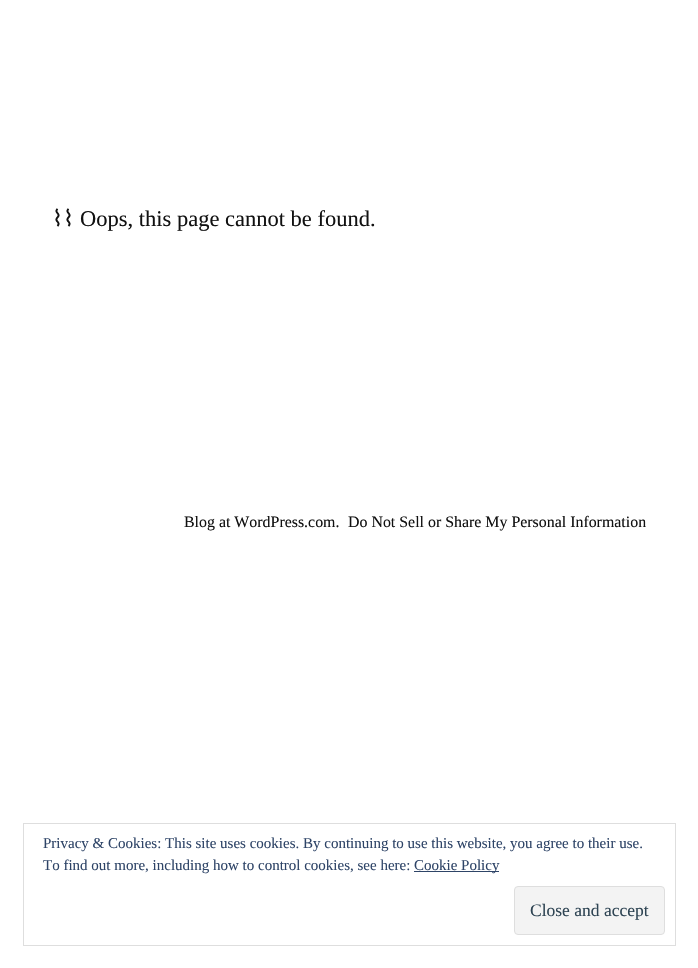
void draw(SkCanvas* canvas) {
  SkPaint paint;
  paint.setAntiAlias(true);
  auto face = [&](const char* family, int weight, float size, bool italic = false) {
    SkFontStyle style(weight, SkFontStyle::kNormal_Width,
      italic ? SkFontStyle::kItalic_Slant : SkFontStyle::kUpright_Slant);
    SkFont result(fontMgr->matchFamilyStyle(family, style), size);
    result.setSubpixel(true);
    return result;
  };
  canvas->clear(0xffffffff);
  paint.setStroke(true);
  paint.setStrokeWidth(1);
  paint.setColor(0xffdedede);
  canvas->drawRect(SkRect::MakeXYWH(23.5f, 823.5f, 652, 122), paint);
  paint.setStroke(false);
  paint.setColor(0xff2e4467);
  canvas->drawRect(SkRect::MakeXYWH(414, 871, 85, 1), paint);
  paint.setColor(0xfff3f3f3);
  canvas->drawRoundRect(SkRect::MakeXYWH(514.5f, 886.5f, 150, 48), 3.5f, 3.5f, paint);
  paint.setStroke(true);
  paint.setColor(0xffdedede);
  canvas->drawRoundRect(SkRect::MakeXYWH(514.5f, 886.5f, 150, 48), 3.5f, 3.5f, paint);
  auto f0 = face("DejaVu Sans", 400, 22.5f);
  paint.setStroke(false);
  paint.setColor(0xff111111);
  canvas->drawString("⌇⌇", 52, 226, f0, paint);
  auto f1 = face("Liberation Serif", 400, 22.5f);
  canvas->drawString("Oops, this page cannot be found.", 80, 226, f1, paint);
  auto f2 = face("Liberation Serif", 400, 15.9f);
  canvas->drawString("Blog at WordPress.com.", 184, 527, f2, paint);
  canvas->drawString("Do Not Sell or Share My Personal Information", 348, 527, f2, paint);
  auto f3 = face("Liberation Serif", 400, 15);
  paint.setColor(0xff2e4467);
  {
    const struct { const char* s; float x, y; } items[] = {
      {"Privacy & Cookies: This site uses cookies. By continuing to use this website, you agree to their use.", 43, 848},
      {"To find out more, including how to control cookies, see here:", 43, 870},
      {"Cookie Policy", 414, 870},
    };
    for (auto [s, x, y] : items) {
      canvas->drawString(s, x, y, f3, paint);
    }
  }
  auto f4 = face("Liberation Serif", 400, 17.5f);
  paint.setColor(0xff2e4453);
  canvas->drawString("Close and accept", 530, 916, f4, paint);
}
